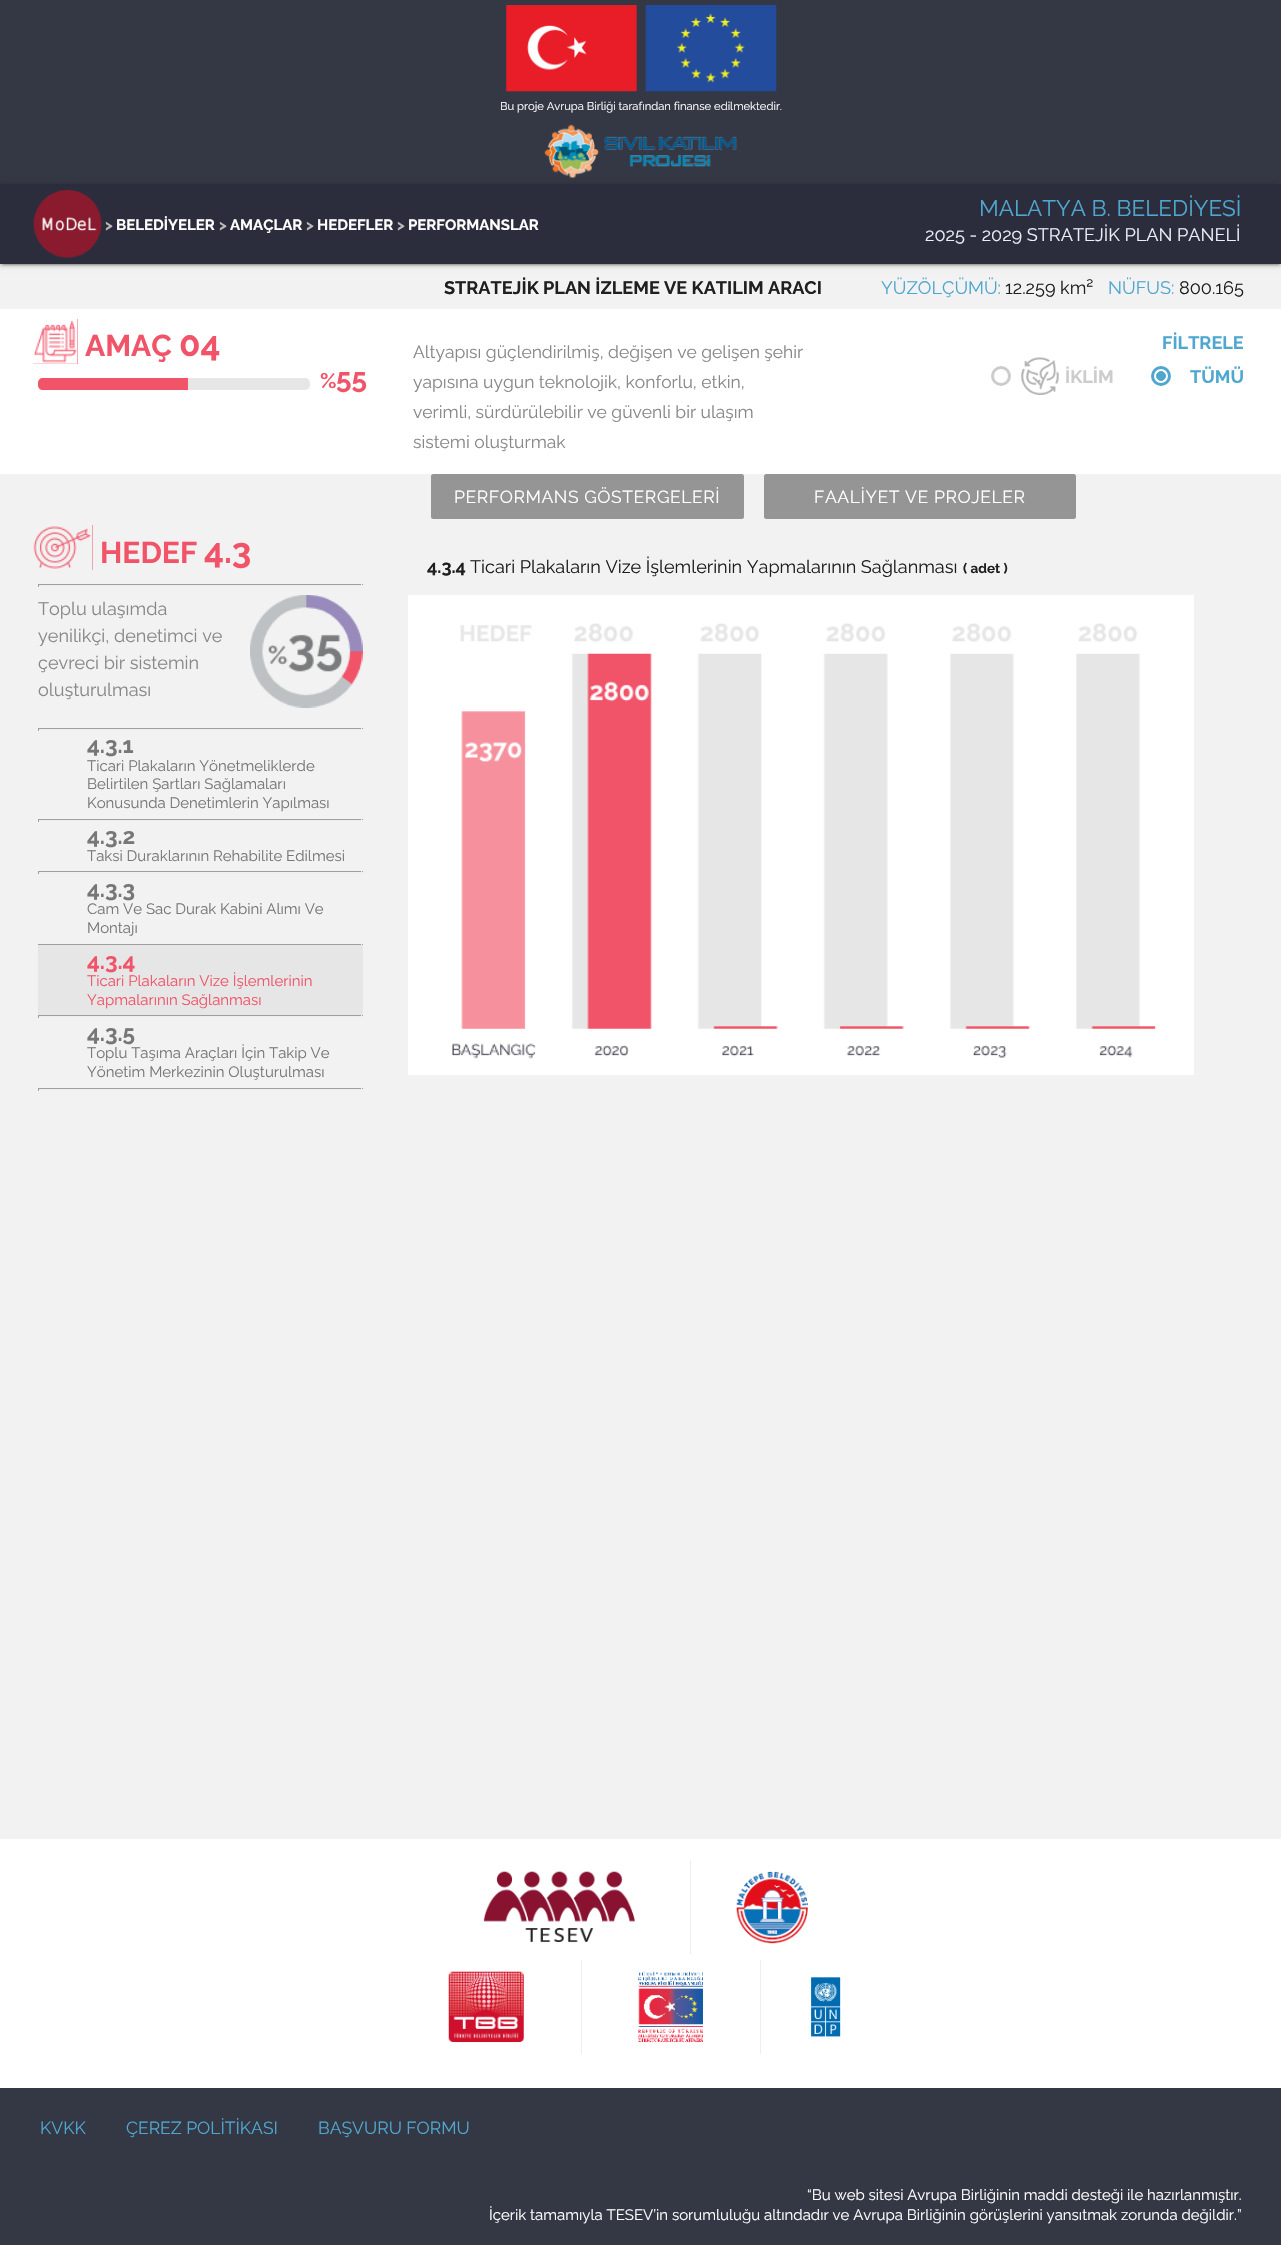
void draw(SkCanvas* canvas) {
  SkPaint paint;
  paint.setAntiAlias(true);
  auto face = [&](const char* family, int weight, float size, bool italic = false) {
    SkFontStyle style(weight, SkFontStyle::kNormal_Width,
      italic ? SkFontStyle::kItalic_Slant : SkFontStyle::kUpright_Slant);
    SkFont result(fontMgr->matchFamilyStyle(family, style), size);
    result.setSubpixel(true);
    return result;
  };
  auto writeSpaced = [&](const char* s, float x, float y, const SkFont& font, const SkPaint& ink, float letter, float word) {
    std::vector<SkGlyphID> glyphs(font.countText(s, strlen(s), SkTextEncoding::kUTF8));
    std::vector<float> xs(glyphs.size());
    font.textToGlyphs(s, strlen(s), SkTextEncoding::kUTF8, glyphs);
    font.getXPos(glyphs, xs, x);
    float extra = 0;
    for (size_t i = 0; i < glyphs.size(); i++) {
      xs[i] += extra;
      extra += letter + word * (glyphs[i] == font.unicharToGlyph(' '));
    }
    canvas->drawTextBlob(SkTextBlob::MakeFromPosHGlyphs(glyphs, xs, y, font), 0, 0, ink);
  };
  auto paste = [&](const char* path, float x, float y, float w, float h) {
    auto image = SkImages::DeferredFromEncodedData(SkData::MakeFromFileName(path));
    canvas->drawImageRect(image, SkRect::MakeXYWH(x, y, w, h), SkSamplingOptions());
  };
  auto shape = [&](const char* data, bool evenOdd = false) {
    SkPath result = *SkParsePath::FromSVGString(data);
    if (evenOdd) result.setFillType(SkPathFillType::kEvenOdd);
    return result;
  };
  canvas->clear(0xfff2f2f2);
  paint.setColor(0xff343744);
  canvas->drawRect(SkRect::MakeXYWH(0, 0, 1281, 184), paint);
  paste("img/1.png", 506, 5, 271, 87);
  paste("img/2.png", 544, 124, 193, 54);
  paint.setColor(0x33000000);
  paint.setMaskFilter(SkMaskFilter::MakeBlur(kNormal_SkBlurStyle, 3));
  canvas->drawRect(SkRect::MakeXYWH(0, 185, 1281, 80), paint);
  paint.setMaskFilter(nullptr);
  paint.setColor(0x1f000000);
  paint.setMaskFilter(SkMaskFilter::MakeBlur(kNormal_SkBlurStyle, 0.5f));
  canvas->drawRect(SkRect::MakeXYWH(3, 190, 1276, 75), paint);
  paint.setMaskFilter(nullptr);
  paint.setColor(0x24000000);
  paint.setMaskFilter(SkMaskFilter::MakeBlur(kNormal_SkBlurStyle, 1));
  canvas->drawRect(SkRect::MakeXYWH(0, 186, 1281, 80), paint);
  paint.setMaskFilter(nullptr);
  paint.setColor(0xff2b2d3c);
  canvas->drawRect(SkRect::MakeXYWH(0, 184, 1281, 80), paint);
  paste("img/3.png", 33, 190, 69, 68);
  paint.setColor(0xffffffff);
  canvas->drawRect(SkRect::MakeXYWH(0, 309, 1281, 165), paint);
  paint.setColor(0xfff15469);
  canvas->drawRect(SkRect::MakeXYWH(33, 319, 45, 45), paint);
  paste("img/4.png", 33, 319, 45, 45);
  paint.setColor(0xffe6e6e6);
  canvas->drawRoundRect(SkRect::MakeXYWH(38, 378, 272, 12), 5, 5, paint);
  paint.setColor(0xfff15469);
  canvas->drawPath(shape("M43 378H188V390H43C40 390 38 388 38 385V383C38 380 40 378 43 378Z"), paint);
  paste("img/5.png", 1021, 357, 38, 38);
  paint.setStroke(true);
  paint.setStrokeWidth(3);
  paint.setColor(0xffcccccc);
  canvas->drawCircle(1001, 376, 8.5f, paint);
  paint.setColor(0xff4fa7cf);
  canvas->drawCircle(1161, 376, 8.5f, paint);
  paint.setStroke(false);
  canvas->drawCircle(1161, 376, 4.5f, paint);
  paint.setStroke(true);
  paint.setStrokeWidth(1);
  canvas->drawCircle(1161, 376, 4.5f, paint);
  paint.setStroke(false);
  paint.setColor(0xff959595);
  canvas->drawRoundRect(SkRect::MakeXYWH(431, 474, 313, 45), 2.5f, 2.5f, paint);
  canvas->drawRoundRect(SkRect::MakeXYWH(764, 474, 312, 45), 2.5f, 2.5f, paint);
  paint.setColor(0xfff15469);
  canvas->drawRect(SkRect::MakeXYWH(33, 525, 60, 45), paint);
  paste("img/6.png", 33, 525, 60, 45);
  {
    const struct { float x, y, w, h; SkColor color; } items[] = {
      {38, 584, 325, 1, 0xff9f9f9f},
      {361, 584, 1, 3, 0xffeeeeee},
      {38, 585, 325, 1, 0xffeeeeee},
      {38, 584, 1, 3, 0xff9f9f9f},
    };
    for (auto [x, y, w, h, color] : items) {
      paint.setColor(color);
      canvas->drawRect(SkRect::MakeXYWH(x, y, w, h), paint);
    }
  }
  paste("img/7.png", 250, 595, 113, 113);
  {
    const struct { float x, y, w, h; SkColor color; } items[] = {
      {38, 728, 325, 1, 0xff9f9f9f},
      {361, 728, 1, 3, 0xffeeeeee},
      {38, 729, 325, 1, 0xffeeeeee},
      {38, 728, 1, 3, 0xff9f9f9f},
      {38, 819, 325, 1, 0xff9f9f9f},
      {361, 819, 1, 3, 0xffeeeeee},
      {38, 820, 325, 1, 0xffeeeeee},
      {38, 819, 1, 3, 0xff9f9f9f},
      {38, 871, 325, 1, 0xff9f9f9f},
      {361, 871, 1, 3, 0xffeeeeee},
      {38, 873, 325, 1, 0xffeeeeee},
      {38, 871, 1, 3, 0xff9f9f9f},
      {38, 944, 325, 1, 0xff9f9f9f},
      {361, 944, 1, 3, 0xffeeeeee},
      {38, 944, 1, 3, 0xff9f9f9f},
      {38, 945, 325, 70, 0xffe6e6e6},
      {38, 1015, 325, 1, 0xff9f9f9f},
      {361, 1015, 1, 3, 0xffeeeeee},
      {38, 1016, 325, 1, 0xffeeeeee},
      {38, 1015, 1, 3, 0xff9f9f9f},
      {38, 1088, 325, 1, 0xff9f9f9f},
      {361, 1088, 1, 3, 0xffeeeeee},
      {38, 1089, 325, 1, 0xffeeeeee},
      {38, 1088, 1, 3, 0xff9f9f9f},
      {408, 595, 786, 480, 0xffffffff},
    };
    for (auto [x, y, w, h, color] : items) {
      paint.setColor(color);
      canvas->drawRect(SkRect::MakeXYWH(x, y, w, h), paint);
    }
  }
  paste("img/8.png", 452, 623, 705, 436);
  canvas->drawRect(SkRect::MakeXYWH(0, 1839, 1281, 249), paint);
  paste("img/9.png", 483, 1871, 152, 72);
  paint.setColor(0xffeeeeee);
  canvas->drawRect(SkRect::MakeXYWH(690, 1860, 1, 94), paint);
  paste("img/10.png", 736, 1871, 72, 73);
  paste("img/11.png", 448, 1971, 76, 72);
  canvas->drawRect(SkRect::MakeXYWH(581, 1960, 1, 94), paint);
  paste("img/12.png", 638, 1971, 65, 72);
  canvas->drawRect(SkRect::MakeXYWH(760, 1960, 1, 94), paint);
  paste("img/13.png", 811, 1977, 30, 60);
  paint.setColor(0xff343744);
  canvas->drawRect(SkRect::MakeXYWH(0, 2088, 1281, 157), paint);
  auto f0 = face("Raleway", 400, 11.25f);
  paint.setColor(0xffffffff);
  canvas->drawString("Bu proje Avrupa Birliği tarafından finanse edilmektedir.", 500, 110, f0, paint);
  auto f1 = face("Raleway", 700, 15);
  paint.setColor(0xffbbbbbb);
  canvas->drawString(">", 105, 230, f1, paint);
  paint.setColor(0xffffffff);
  canvas->drawString("BELEDİYELER", 116, 230, f1, paint);
  paint.setColor(0xffbbbbbb);
  canvas->drawString(">", 219, 230, f1, paint);
  paint.setColor(0xffffffff);
  canvas->drawString("AMAÇLAR", 230, 230, f1, paint);
  paint.setColor(0xffbbbbbb);
  canvas->drawString(">", 306, 230, f1, paint);
  paint.setColor(0xffffffff);
  canvas->drawString("HEDEFLER", 317, 230, f1, paint);
  paint.setColor(0xffbbbbbb);
  canvas->drawString(">", 397, 230, f1, paint);
  paint.setColor(0xffffffff);
  canvas->drawString("PERFORMANSLAR", 408, 230, f1, paint);
  auto f2 = face("Raleway", 400, 22.5f);
  paint.setColor(0xff4fa7cf);
  canvas->drawString("MALATYA B. BELEDİYESİ", 979, 216, f2, paint);
  auto f3 = face("Raleway", 400, 18.1f);
  paint.setColor(0xffe8eff5);
  canvas->drawString("2025 - 2029 STRATEJİK PLAN PANELİ", 925, 241, f3, paint);
  auto f4 = face("Raleway", 700, 18.1f);
  paint.setColor(0xff1f1f1f);
  canvas->drawString("STRATEJİK PLAN İZLEME VE KATILIM ARACI", 444, 294, f4, paint);
  paint.setColor(0xff4fa7cf);
  canvas->drawString("YÜZÖLÇÜMÜ:", 881, 294, f3, paint);
  paint.setColor(0xff1f1f1f);
  canvas->drawString("12.259 km²", 1005, 294, f3, paint);
  paint.setColor(0xff4fa7cf);
  canvas->drawString("NÜFUS:", 1108, 294, f3, paint);
  paint.setColor(0xff1f1f1f);
  canvas->drawString("800.165", 1179, 294, f3, paint);
  auto f5 = face("Raleway", 700, 30);
  paint.setColor(0xfff15469);
  canvas->drawString("AMAÇ", 85, 356, f5, paint);
  auto f6 = face("Raleway", 700, 35);
  canvas->drawString("04", 179, 356, f6, paint);
  auto f7 = face("Raleway", 700, 21);
  canvas->drawString("%", 320, 388, f7, paint);
  auto f8 = face("Raleway", 700, 28);
  canvas->drawString("55", 336, 388, f8, paint);
  auto f9 = face("Raleway", 400, 17.5f);
  paint.setColor(0xff888888);
  {
    const struct { const char* s; float x, y; } items[] = {
      {"Altyapısı güçlendirilmiş, değişen ve gelişen şehir", 413, 358},
      {"yapısına uygun teknolojik, konforlu, etkin,", 413, 388},
      {"verimli, sürdürülebilir ve güvenli bir ulaşım", 413, 418},
      {"sistemi oluşturmak", 413, 448},
    };
    for (auto [s, x, y] : items) {
      canvas->drawString(s, x, y, f9, paint);
    }
  }
  paint.setColor(0xff4fa7cf);
  canvas->drawString("FİLTRELE", 1162, 349, f4, paint);
  paint.setColor(0xffcccccc);
  canvas->drawString("İKLİM", 1065, 383, f4, paint);
  paint.setColor(0xff4fa7cf);
  canvas->drawString("TÜMÜ", 1190, 383, f4, paint);
  paint.setColor(0xffffffff);
  writeSpaced("PERFORMANS GÖSTERGELERİ", 454, 503, f9, paint, 0.6f, 0);
  writeSpaced("FAALİYET VE PROJELER", 814, 503, f9, paint, 0.6f, 0);
  paint.setColor(0xfff15469);
  canvas->drawString("HEDEF", 100, 563, f5, paint);
  canvas->drawString("4.3", 204, 563, f6, paint);
  paint.setColor(0xff888888);
  {
    const struct { const char* s; float x, y; } items[] = {
      {"Toplu ulaşımda", 38, 615},
      {"yenilikçi, denetimci ve", 38, 642},
      {"çevreci bir sistemin", 38, 669},
      {"oluşturulması", 38, 696},
    };
    for (auto [s, x, y] : items) {
      canvas->drawString(s, x, y, f3, paint);
    }
  }
  auto f10 = face("Raleway", 700, 22.5f);
  paint.setColor(0xff777777);
  canvas->drawString("4.3.1", 87, 753, f10, paint);
  auto f11 = face("Raleway", 400, 15);
  {
    const struct { const char* s; float x, y; } items[] = {
      {"Ticari Plakaların Yönetmeliklerde", 87, 771},
      {"Belirtilen Şartları Sağlamaları", 87, 789},
      {"Konusunda Denetimlerin Yapılması", 87, 808},
    };
    for (auto [s, x, y] : items) {
      canvas->drawString(s, x, y, f11, paint);
    }
  }
  canvas->drawString("4.3.2", 87, 844, f10, paint);
  canvas->drawString("Taksi Duraklarının Rehabilite Edilmesi", 87, 861, f11, paint);
  canvas->drawString("4.3.3", 87, 897, f10, paint);
  canvas->drawString("Cam Ve Sac Durak Kabini Alımı Ve", 87, 914, f11, paint);
  canvas->drawString("Montajı", 87, 933, f11, paint);
  paint.setColor(0xfff15469);
  canvas->drawString("4.3.4", 87, 969, f10, paint);
  canvas->drawString("Ticari Plakaların Vize İşlemlerinin", 87, 986, f11, paint);
  canvas->drawString("Yapmalarının Sağlanması", 87, 1005, f11, paint);
  paint.setColor(0xff777777);
  canvas->drawString("4.3.5", 87, 1041, f10, paint);
  canvas->drawString("Toplu Taşıma Araçları İçin Takip Ve", 87, 1058, f11, paint);
  canvas->drawString("Yönetim Merkezinin Oluşturulması", 87, 1077, f11, paint);
  paint.setColor(0xff1f1f1f);
  canvas->drawString("4.3.4", 427, 573, f4, paint);
  canvas->drawString("Ticari Plakaların Vize İşlemlerinin Yapmalarının Sağlanması", 470, 573, f3, paint);
  auto f12 = face("Raleway", 700, 13.5f);
  canvas->drawString("( adet )", 963, 573, f12, paint);
  paint.setColor(0xff4fa7cf);
  {
    const struct { const char* s; float x, y; } items[] = {
      {"KVKK", 40, 2134},
      {"ÇEREZ POLİTİKASI", 126, 2134},
      {"BAŞVURU FORMU", 318, 2134},
    };
    for (auto [s, x, y] : items) {
      canvas->drawString(s, x, y, f9, paint);
    }
  }
  paint.setColor(0xffffffff);
  canvas->drawString("“Bu web sitesi Avrupa Birliğinin maddi desteği ile hazırlanmıştır.", 807, 2200, f11, paint);
  canvas->drawString("İçerik tamamıyla TESEV’in sorumluluğu altındadır ve Avrupa Birliğinin görüşlerini yansıtmak zorunda değildir.”", 489, 2220, f11, paint);
}
